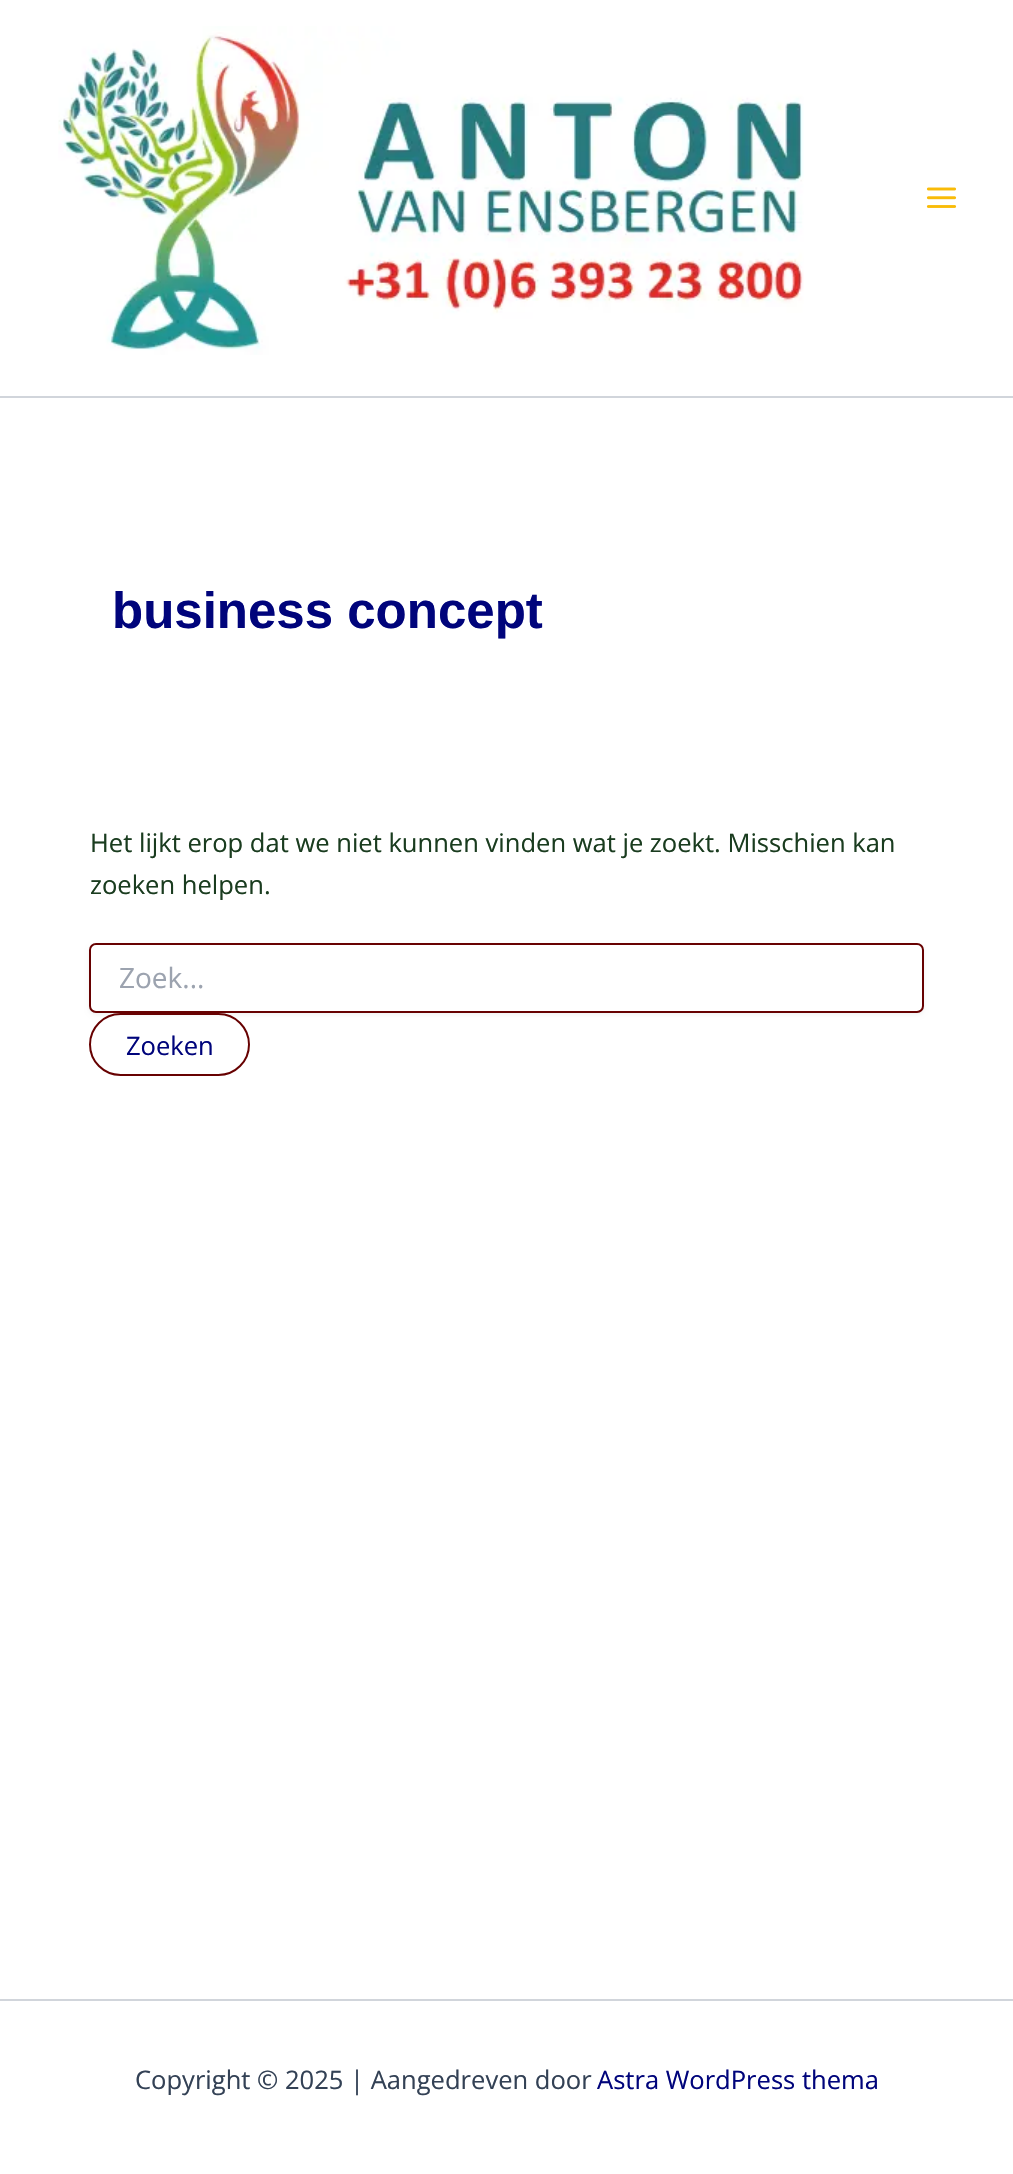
void draw(SkCanvas* canvas) {
  SkPaint paint;
  paint.setAntiAlias(true);
  auto face = [&](const char* family, int weight, float size, bool italic = false) {
    SkFontStyle style(weight, SkFontStyle::kNormal_Width,
      italic ? SkFontStyle::kItalic_Slant : SkFontStyle::kUpright_Slant);
    SkFont result(fontMgr->matchFamilyStyle(family, style), size);
    result.setSubpixel(true);
    return result;
  };
  auto paste = [&](const char* path, float x, float y, float w, float h) {
    auto image = SkImages::DeferredFromEncodedData(SkData::MakeFromFileName(path));
    canvas->drawImageRect(image, SkRect::MakeXYWH(x, y, w, h), SkSamplingOptions());
  };
  canvas->clear(0xffffffff);
  paint.setColor(0xffd1d5db);
  canvas->drawRect(SkRect::MakeXYWH(0, 396, 1013, 2), paint);
  paste("img/1.png", 58, 26, 746, 329);
  paste("img/2.png", 926, 187, 31, 21);
  paint.setColor(0x0d000000);
  paint.setMaskFilter(SkMaskFilter::MakeBlur(kNormal_SkBlurStyle, 2));
  canvas->drawRoundRect(SkRect::MakeXYWH(89, 945, 835, 70), 7, 7, paint);
  paint.setMaskFilter(nullptr);
  paint.setColor(0xffffffff);
  canvas->drawRoundRect(SkRect::MakeXYWH(90, 944, 833, 68), 6, 6, paint);
  paint.setStroke(true);
  paint.setStrokeWidth(2);
  paint.setColor(0xff670101);
  canvas->drawRoundRect(SkRect::MakeXYWH(90, 944, 833, 68), 6, 6, paint);
  canvas->drawRoundRect(SkRect::MakeXYWH(90, 1014, 159, 61), 30.5f, 30.5f, paint);
  paint.setStroke(false);
  paint.setColor(0xffd1d5db);
  canvas->drawRect(SkRect::MakeXYWH(0, 1999, 1013, 2), paint);
  auto f0 = face("Liberation Sans", 700, 51);
  paint.setColor(0xff00047b);
  canvas->drawString("business concept", 112, 628, f0, paint);
  auto f1 = face("Open Sans", 400, 25.55f);
  paint.setColor(0xff1a3c1f);
  canvas->drawString("Het lijkt erop dat we niet kunnen vinden wat je zoekt. Misschien kan", 90, 852, f1, paint);
  canvas->drawString("zoeken helpen.", 90, 894, f1, paint);
  auto f2 = face("Open Sans", 400, 28);
  paint.setColor(0xff9ca3af);
  canvas->drawString("Zoek...", 119, 988, f2, paint);
  paint.setColor(0xff00047b);
  canvas->drawString("Zoeken", 126, 1055, f1, paint);
  paint.setColor(0xff334155);
  canvas->drawString("Copyright © 2025 | Aangedreven door", 135, 2089, f1, paint);
  paint.setColor(0xff00047b);
  canvas->drawString("Astra WordPress thema", 597, 2089, f1, paint);
}
